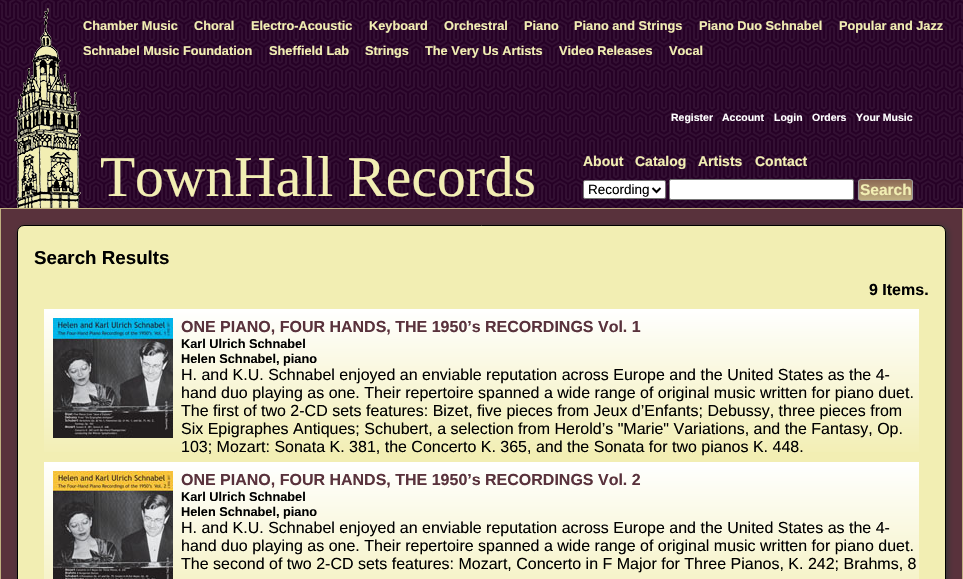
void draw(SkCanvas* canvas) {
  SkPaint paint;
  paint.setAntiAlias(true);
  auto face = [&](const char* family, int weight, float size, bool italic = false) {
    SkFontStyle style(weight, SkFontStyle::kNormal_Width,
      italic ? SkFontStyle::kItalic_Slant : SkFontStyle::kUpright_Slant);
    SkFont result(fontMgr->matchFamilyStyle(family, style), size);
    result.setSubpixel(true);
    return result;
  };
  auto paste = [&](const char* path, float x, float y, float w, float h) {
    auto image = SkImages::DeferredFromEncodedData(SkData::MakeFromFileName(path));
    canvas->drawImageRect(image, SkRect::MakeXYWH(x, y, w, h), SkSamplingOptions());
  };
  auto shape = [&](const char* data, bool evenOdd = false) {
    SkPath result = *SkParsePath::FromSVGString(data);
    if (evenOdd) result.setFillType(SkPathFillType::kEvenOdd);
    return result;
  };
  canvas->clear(0xff260126);
  paste("img/1.png", 0, 0, 963, 208);
  paste("img/2.png", 14, 8, 67, 200);
  paint.setColor(0xffffffff);
  canvas->drawRoundRect(SkRect::MakeXYWH(583.5f, 180.5f, 82, 18), 1.5f, 1.5f, paint);
  paint.setStroke(true);
  paint.setStrokeWidth(1);
  paint.setColor(0xff767676);
  canvas->drawRoundRect(SkRect::MakeXYWH(583.5f, 180.5f, 82, 18), 1.5f, 1.5f, paint);
  paint.setStrokeWidth(2);
  paint.setColor(0xff000000);
  canvas->drawPath(shape("M652.5 188L656.5 192L660.5 188"), paint);
  paint.setStroke(false);
  paint.setColor(0xffffffff);
  canvas->drawRoundRect(SkRect::MakeXYWH(669.5f, 179.5f, 184, 20), 1.5f, 1.5f, paint);
  paint.setStroke(true);
  paint.setStrokeWidth(1);
  paint.setColor(0xff767676);
  canvas->drawRoundRect(SkRect::MakeXYWH(669.5f, 179.5f, 184, 20), 1.5f, 1.5f, paint);
  canvas->save();
  canvas->clipPath(shape("M861 179H910C911.5 179 913 180.5 913 182V198C913 199.5 911.5 201 910 201H861C859.5 201 858 199.5 858 198V182C858 180.5 859.5 179 861 179Z"), true);
  paint.setStroke(false);
  {
    const SkColor colors[] = {0xff8c6954, 0xffbfaf80};
    const float stops[] = {0, 1};
    const SkPoint ends[] = {{886, 180}, {886, 200}};
    paint.setShader(SkGradientShader::MakeLinear(ends, colors, stops, 2, SkTileMode::kClamp));
    paint.setAlpha(255);
  }
  canvas->drawRect(SkRect::MakeXYWH(858, 180, 55, 20), paint);
  canvas->restore();
  paint.setStroke(true);
  paint.setShader(nullptr);
  paint.setColor(0xff999999);
  canvas->drawRoundRect(SkRect::MakeXYWH(858.5f, 179.5f, 54, 21), 2.5f, 2.5f, paint);
  paint.setStroke(false);
  {
    const struct { float x, y, w, h; SkColor color; } items[] = {
      {1, 209, 961, 370, 0xff59323c},
      {0, 208, 963, 1, 0xffbfaf80},
      {962, 208, 1, 371, 0xffbfaf80},
      {0, 208, 1, 371, 0xffbfaf80},
    };
    for (auto [x, y, w, h, color] : items) {
      paint.setColor(color);
      canvas->drawRect(SkRect::MakeXYWH(x, y, w, h), paint);
    }
  }
  paint.setColor(0xff333333);
  paint.setMaskFilter(SkMaskFilter::MakeBlur(kNormal_SkBlurStyle, 3));
  canvas->drawRoundRect(SkRect::MakeXYWH(19, 227, 929, 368), 7, 7, paint);
  paint.setMaskFilter(nullptr);
  paint.setColor(0xfff2eeb3);
  canvas->drawRoundRect(SkRect::MakeXYWH(17.5f, 225.5f, 928, 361), 6.5f, 6.5f, paint);
  paint.setStroke(true);
  paint.setColor(0xff000000);
  canvas->drawRoundRect(SkRect::MakeXYWH(17.5f, 225.5f, 928, 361), 6.5f, 6.5f, paint);
  paint.setStroke(false);
  {
    const SkColor colors[] = {0xffffffff, 0xfff2eeb3};
    const float stops[] = {0, 1};
    const SkPoint ends[] = {{482, 309}, {482, 457}};
    paint.setShader(SkGradientShader::MakeLinear(ends, colors, stops, 2, SkTileMode::kClamp));
    paint.setAlpha(255);
  }
  canvas->drawRect(SkRect::MakeXYWH(44, 309, 875, 143), paint);
  paste("img/3.png", 53, 318, 120, 120);
  {
    const SkColor colors[] = {0xffffffff, 0xfff2eeb3};
    const float stops[] = {0, 1};
    const SkPoint ends[] = {{482, 462}, {482, 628}};
    paint.setShader(SkGradientShader::MakeLinear(ends, colors, stops, 2, SkTileMode::kClamp));
    paint.setAlpha(255);
  }
  canvas->drawRect(SkRect::MakeXYWH(44, 462, 875, 117), paint);
  paste("img/4.png", 53, 471, 120, 108);
  auto f0 = face("Liberation Sans", 700, 12.75f);
  paint.setShader(nullptr);
  paint.setColor(0xfff2eeb3);
  {
    const struct { const char* s; float x, y; } items[] = {
      {"Chamber Music", 83, 30},
      {"Choral", 194, 30},
      {"Electro-Acoustic", 251, 30},
      {"Keyboard", 369, 30},
      {"Orchestral", 444, 30},
      {"Piano", 524, 30},
      {"Piano and Strings", 574, 30},
      {"Piano Duo Schnabel", 699, 30},
      {"Popular and Jazz", 839, 30},
      {"Schnabel Music Foundation", 83, 55},
      {"Sheffield Lab", 269, 55},
      {"Strings", 365, 55},
      {"The Very Us Artists", 425, 55},
      {"Video Releases", 559, 55},
      {"Vocal", 669, 55},
    };
    for (auto [s, x, y] : items) {
      canvas->drawString(s, x, y, f0, paint);
    }
  }
  auto f1 = face("Liberation Serif", 400, 57.5f);
  canvas->drawString("TownHall Records", 100, 196, f1, paint);
  auto f2 = face("Liberation Sans", 700, 10.5f);
  paint.setColor(0xffffffff);
  {
    const struct { const char* s; float x, y; } items[] = {
      {"Register", 671, 121},
      {"Account", 722, 121},
      {"Login", 774, 121},
      {"Orders", 812, 121},
      {"Your Music", 856, 121},
    };
    for (auto [s, x, y] : items) {
      canvas->drawString(s, x, y, f2, paint);
    }
  }
  auto f3 = face("Liberation Sans", 700, 14);
  paint.setColor(0xfff2eeb3);
  {
    const struct { const char* s; float x, y; } items[] = {
      {"About", 583, 166},
      {"Catalog", 635, 166},
      {"Artists", 698, 166},
      {"Contact", 755, 166},
    };
    for (auto [s, x, y] : items) {
      canvas->drawString(s, x, y, f3, paint);
    }
  }
  auto f4 = face("Liberation Sans", 400, 13.5f);
  paint.setColor(0xff000000);
  canvas->drawString("Recording", 588, 194, f4, paint);
  auto f5 = face("Liberation Sans", 700, 15.5f);
  paint.setColor(0xfff2eeb3);
  canvas->drawString("Search", 860, 195, f5, paint);
  auto f6 = face("Liberation Sans", 700, 18.75f);
  paint.setColor(0xff000000);
  canvas->drawString("Search Results", 34, 264, f6, paint);
  auto f7 = face("Liberation Sans", 700, 16);
  canvas->drawString("9 Items.", 869, 295, f7, paint);
  paint.setColor(0xff59323c);
  canvas->drawString("ONE PIANO, FOUR HANDS, THE 1950’s RECORDINGS Vol. 1", 181, 332, f7, paint);
  paint.setColor(0xff000000);
  canvas->drawString("Karl Ulrich Schnabel", 181, 348, f0, paint);
  canvas->drawString("Helen Schnabel, piano", 181, 363, f0, paint);
  auto f8 = face("Liberation Sans", 400, 16);
  {
    const struct { const char* s; float x, y; } items[] = {
      {"H. and K.U. Schnabel enjoyed an enviable reputation across Europe and the United States as the 4-", 181, 380},
      {"hand duo playing as one. Their repertoire spanned a wide range of original music written for piano duet.", 181, 398},
      {"The first of two 2-CD sets features: Bizet, five pieces from Jeux d’Enfants; Debussy, three pieces from", 181, 416},
      {"Six Epigraphes Antiques; Schubert, a selection from Herold’s \"Marie\" Variations, and the Fantasy, Op.", 181, 434},
      {"103; Mozart: Sonata K. 381, the Concerto K. 365, and the Sonata for two pianos K. 448.", 181, 452},
    };
    for (auto [s, x, y] : items) {
      canvas->drawString(s, x, y, f8, paint);
    }
  }
  paint.setColor(0xff59323c);
  canvas->drawString("ONE PIANO, FOUR HANDS, THE 1950’s RECORDINGS Vol. 2", 181, 485, f7, paint);
  paint.setColor(0xff000000);
  canvas->drawString("Karl Ulrich Schnabel", 181, 501, f0, paint);
  canvas->drawString("Helen Schnabel, piano", 181, 516, f0, paint);
  {
    const struct { const char* s; float x, y; } items[] = {
      {"H. and K.U. Schnabel enjoyed an enviable reputation across Europe and the United States as the 4-", 181, 533},
      {"hand duo playing as one. Their repertoire spanned a wide range of original music written for piano duet.", 181, 551},
      {"The second of two 2-CD sets features: Mozart, Concerto in F Major for Three Pianos, K. 242; Brahms, 8", 181, 569},
    };
    for (auto [s, x, y] : items) {
      canvas->drawString(s, x, y, f8, paint);
    }
  }
}
